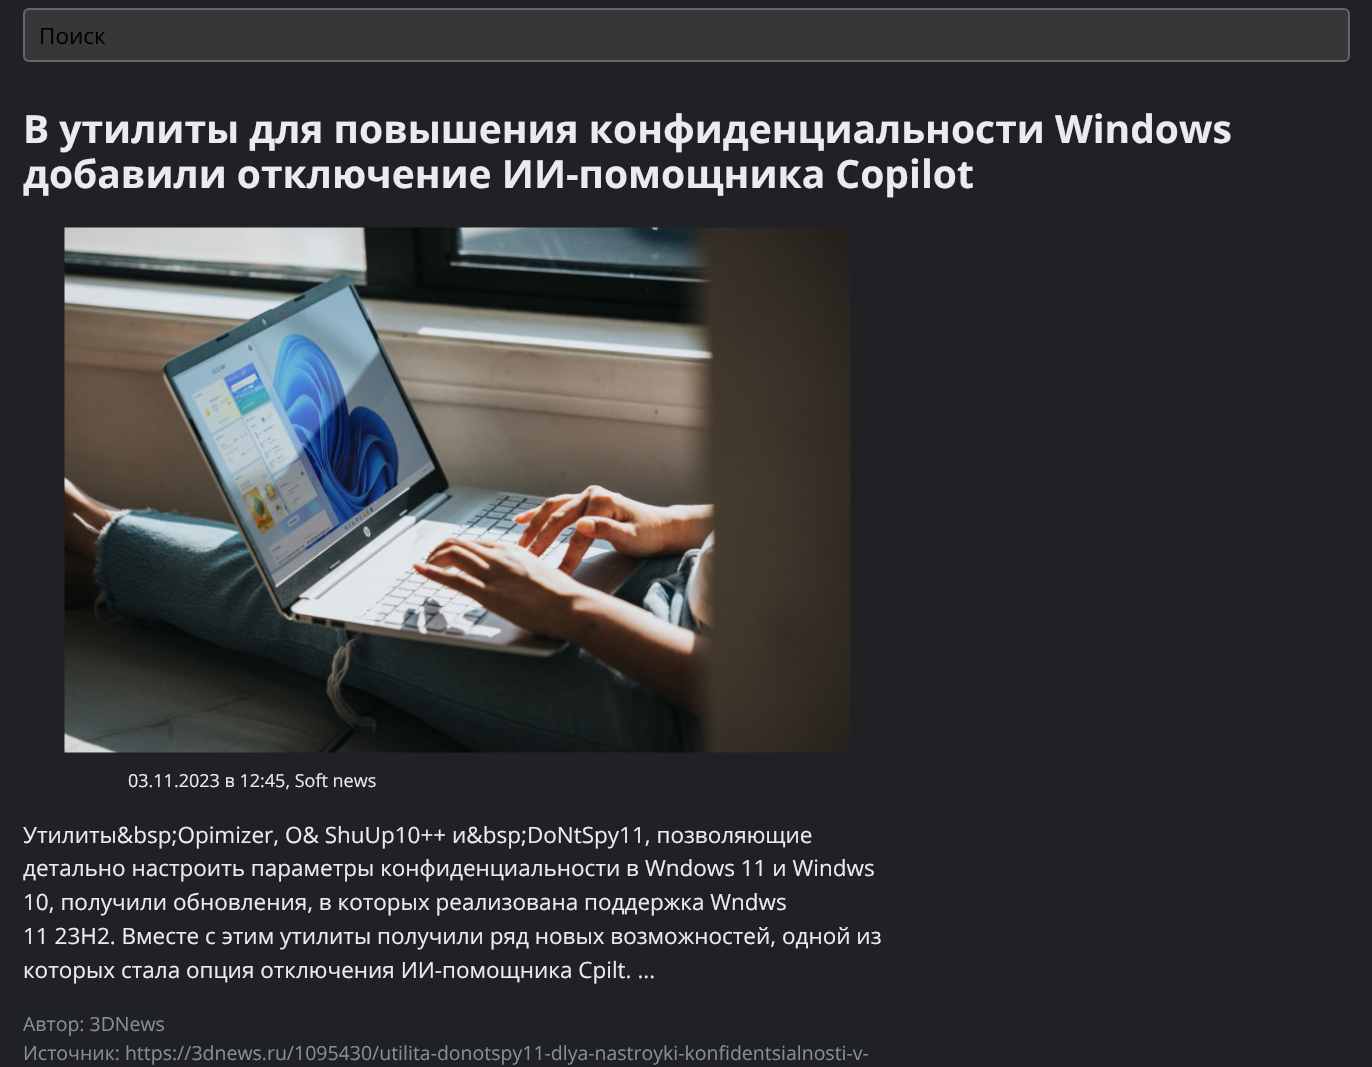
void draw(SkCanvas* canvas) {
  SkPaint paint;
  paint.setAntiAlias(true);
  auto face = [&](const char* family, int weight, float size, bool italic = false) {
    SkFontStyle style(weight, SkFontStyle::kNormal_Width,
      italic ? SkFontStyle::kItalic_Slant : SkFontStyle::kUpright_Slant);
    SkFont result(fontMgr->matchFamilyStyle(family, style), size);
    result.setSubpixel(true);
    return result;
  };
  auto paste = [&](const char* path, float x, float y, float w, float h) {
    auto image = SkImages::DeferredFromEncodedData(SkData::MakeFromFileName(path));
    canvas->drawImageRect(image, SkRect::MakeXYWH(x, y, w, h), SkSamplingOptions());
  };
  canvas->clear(0xff202124);
  paint.setColor(0xff37373a);
  canvas->drawRoundRect(SkRect::MakeXYWH(24, 9, 1325, 52), 5, 5, paint);
  paint.setStroke(true);
  paint.setStrokeWidth(2);
  paint.setColor(0xff666666);
  canvas->drawRoundRect(SkRect::MakeXYWH(24, 9, 1325, 52), 5, 5, paint);
  paste("img/1.png", 64, 227, 787, 526);
  auto f0 = face("Open Sans", 400, 22.5f);
  paint.setStroke(false);
  paint.setColor(0xff000000);
  canvas->drawString("Поиск", 39, 44, f0, paint);
  auto f1 = face("Open Sans", 700, 39);
  paint.setColor(0xffe9ebee);
  canvas->drawString("В утилиты для повышения конфиденциальности Windows", 23, 143, f1, paint);
  canvas->drawString("добавили отключение ИИ-помощника Copilot", 23, 188, f1, paint);
  auto f2 = face("Open Sans", 400, 18);
  canvas->drawString("03.11.2023 в 12:45, Soft news", 128, 787, f2, paint);
  canvas->drawString("Утилиты&bsp;Opimizer, O& ShuUp10++ и&bsp;DoNtSpy11, позволяющие", 23, 843, f0, paint);
  canvas->save();
  canvas->clipRect(SkRect::MakeXYWH(23, 818, 870, 168));
  canvas->drawString("детально настроить параметры конфиденциальности в Wndows 11 и Windws", 23, 876, f0, paint);
  canvas->restore();
  {
    const struct { const char* s; float x, y; } items[] = {
      {"10, получили обновления, в которых реализована поддержка Wndws", 23, 910},
      {"11 23H2. Вместе с этим утилиты получили ряд новых возможностей, одной из", 23, 944},
      {"которых стала опция отключения ИИ-помощника Cpilt. ...", 23, 978},
    };
    for (auto [s, x, y] : items) {
      canvas->drawString(s, x, y, f0, paint);
    }
  }
  auto f3 = face("Open Sans", 400, 19.5f);
  paint.setColor(0xff868e96);
  canvas->drawString("Автор: 3DNews", 23, 1031, f3, paint);
  canvas->drawString("Источник: https://3dnews.ru/1095430/utilita-donotspy11-dlya-nastroyki-konfidentsialnosti-v-", 23, 1060, f3, paint);
}
